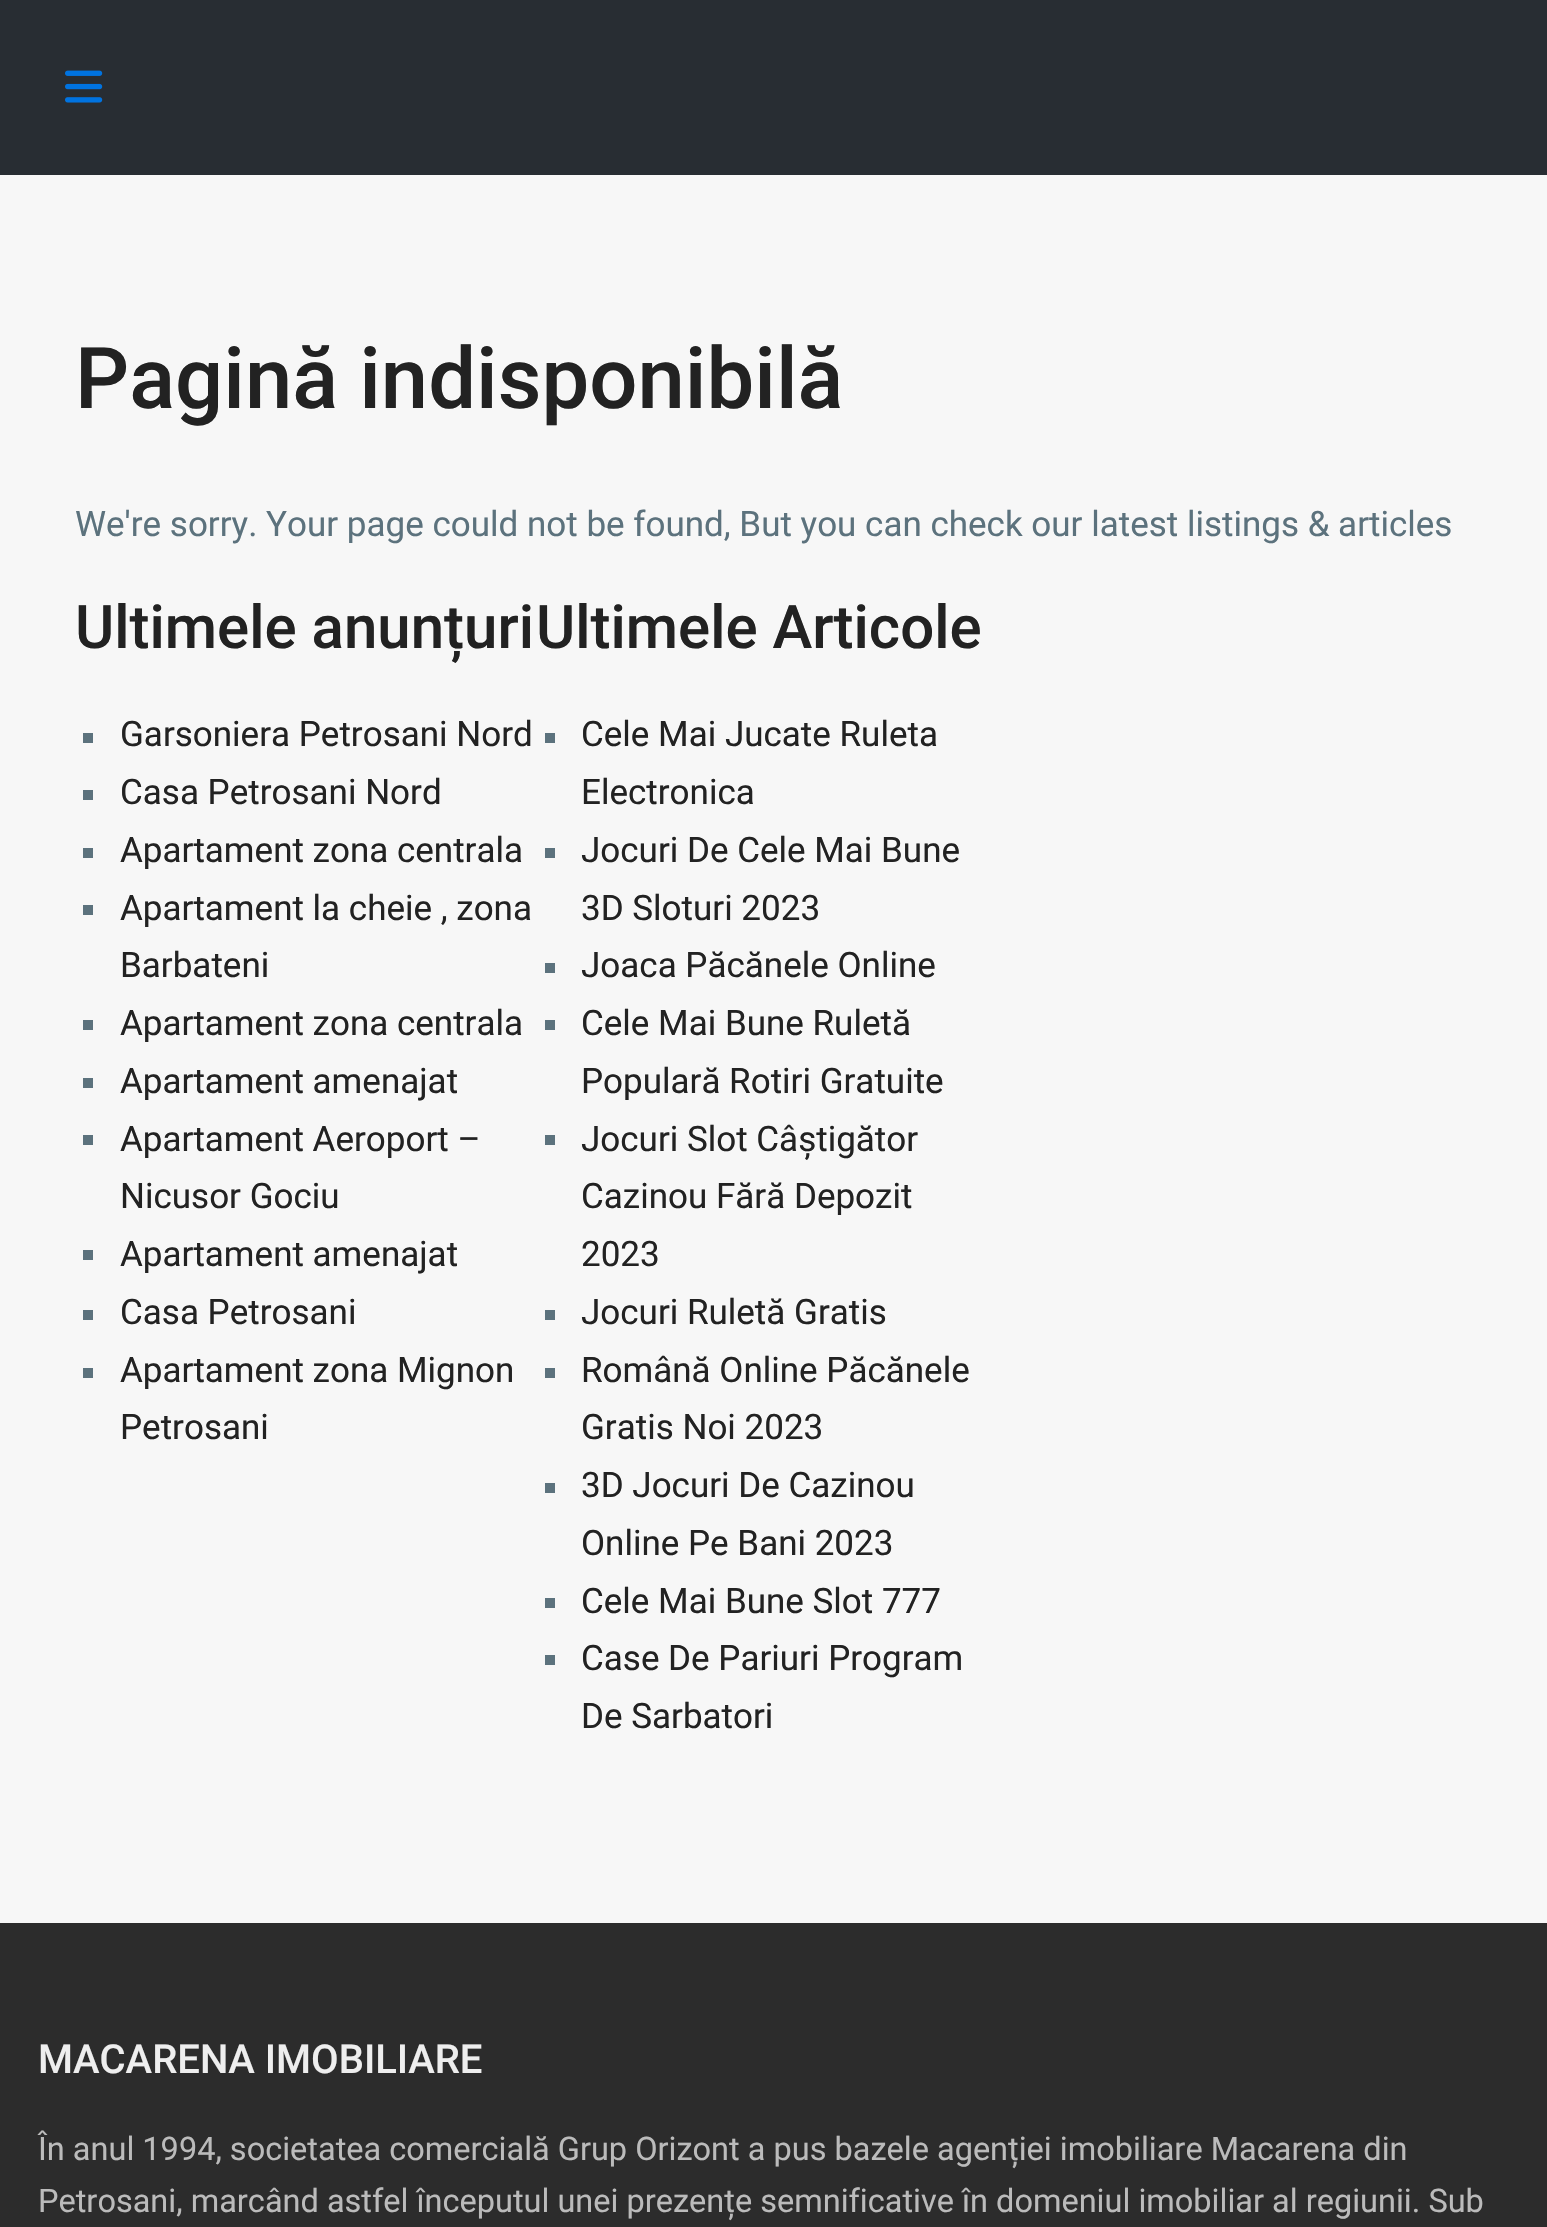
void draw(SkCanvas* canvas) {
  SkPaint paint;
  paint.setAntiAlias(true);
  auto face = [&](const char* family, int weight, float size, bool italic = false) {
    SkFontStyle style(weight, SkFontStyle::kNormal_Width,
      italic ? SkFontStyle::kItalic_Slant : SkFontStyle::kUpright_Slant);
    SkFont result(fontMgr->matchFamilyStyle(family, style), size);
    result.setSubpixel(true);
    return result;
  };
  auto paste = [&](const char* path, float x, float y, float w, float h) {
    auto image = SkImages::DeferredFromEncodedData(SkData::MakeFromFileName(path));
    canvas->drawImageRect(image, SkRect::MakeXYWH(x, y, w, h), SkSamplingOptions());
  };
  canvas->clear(0xfff7f7f7);
  paint.setColor(0xff282d33);
  canvas->drawRect(SkRect::MakeXYWH(0, 0, 1547, 175), paint);
  paste("img/1.png", 65, 70, 38, 33);
  {
    const struct { float x, y, w, h; SkColor color; } items[] = {
      {83, 733, 10, 10, 0xff5c727d},
      {83, 790, 10, 10, 0xff5c727d},
      {83, 848, 10, 10, 0xff5c727d},
      {83, 905, 10, 10, 0xff5c727d},
      {83, 1020, 10, 10, 0xff5c727d},
      {83, 1078, 10, 10, 0xff5c727d},
      {83, 1135, 10, 10, 0xff5c727d},
      {83, 1250, 10, 10, 0xff5c727d},
      {83, 1310, 10, 10, 0xff5c727d},
      {83, 1368, 10, 10, 0xff5c727d},
      {545, 733, 10, 10, 0xff5c727d},
      {545, 848, 10, 10, 0xff5c727d},
      {545, 963, 10, 10, 0xff5c727d},
      {545, 1020, 10, 10, 0xff5c727d},
      {545, 1135, 10, 10, 0xff5c727d},
      {545, 1310, 10, 10, 0xff5c727d},
      {545, 1368, 10, 10, 0xff5c727d},
      {545, 1483, 10, 10, 0xff5c727d},
      {545, 1598, 10, 10, 0xff5c727d},
      {545, 1655, 10, 10, 0xff5c727d},
      {0, 1923, 1547, 304, 0xff2c2c2c},
    };
    for (auto [x, y, w, h, color] : items) {
      paint.setColor(color);
      canvas->drawRect(SkRect::MakeXYWH(x, y, w, h), paint);
    }
  }
  auto f0 = face("Roboto", 500, 85);
  paint.setColor(0xff222222);
  canvas->drawString("Pagină indisponibilă", 75, 408, f0, paint);
  auto f1 = face("Roboto", 400, 35);
  paint.setColor(0xff5c727d);
  canvas->drawString("We're sorry. Your page could not be found, But you can check our latest listings & articles", 75, 536, f1, paint);
  auto f2 = face("Roboto", 500, 60);
  paint.setColor(0xff222222);
  canvas->drawString("Ultimele anunțuri", 75, 648, f2, paint);
  {
    const struct { const char* s; float x, y; } items[] = {
      {"Garsoniera Petrosani Nord", 120, 746},
      {"Casa Petrosani Nord", 120, 804},
      {"Apartament zona centrala", 120, 862},
      {"Apartament la cheie , zona", 120, 920},
      {"Barbateni", 120, 977},
      {"Apartament zona centrala", 120, 1035},
      {"Apartament amenajat", 120, 1093},
      {"Apartament Aeroport –", 120, 1151},
      {"Nicusor Gociu", 120, 1208},
      {"Apartament amenajat", 120, 1266},
      {"Casa Petrosani", 120, 1324},
      {"Apartament zona Mignon", 120, 1382},
      {"Petrosani", 120, 1439},
    };
    for (auto [s, x, y] : items) {
      canvas->drawString(s, x, y, f1, paint);
    }
  }
  canvas->drawString("Ultimele Articole", 536, 648, f2, paint);
  {
    const struct { const char* s; float x, y; } items[] = {
      {"Cele Mai Jucate Ruleta", 581, 746},
      {"Electronica", 581, 804},
      {"Jocuri De Cele Mai Bune", 581, 862},
      {"3D Sloturi 2023", 581, 920},
      {"Joaca Păcănele Online", 581, 977},
      {"Cele Mai Bune Ruletă", 581, 1035},
      {"Populară Rotiri Gratuite", 581, 1093},
      {"Jocuri Slot Câștigător", 581, 1151},
      {"Cazinou Fără Depozit", 581, 1208},
      {"2023", 581, 1266},
      {"Jocuri Ruletă Gratis", 581, 1324},
      {"Română Online Păcănele", 581, 1382},
      {"Gratis Noi 2023", 581, 1439},
      {"3D Jocuri De Cazinou", 581, 1497},
      {"Online Pe Bani 2023", 581, 1555},
      {"Cele Mai Bune Slot 777", 581, 1613},
      {"Case De Pariuri Program", 581, 1670},
      {"De Sarbatori", 581, 1728},
    };
    for (auto [s, x, y] : items) {
      canvas->drawString(s, x, y, f1, paint);
    }
  }
  auto f3 = face("Roboto", 500, 40);
  paint.setColor(0xffeeeeee);
  canvas->drawString("MACARENA IMOBILIARE", 38, 2073, f3, paint);
  auto f4 = face("Roboto", 400, 32.5f);
  paint.setColor(0xffbbbbbb);
  canvas->drawString("În anul 1994, societatea comercială Grup Orizont a pus bazele agenției imobiliare Macarena din", 38, 2160, f4, paint);
  canvas->drawString("Petrosani, marcând astfel începutul unei prezențe semnificative în domeniul imobiliar al regiunii. Sub", 38, 2212, f4, paint);
}
